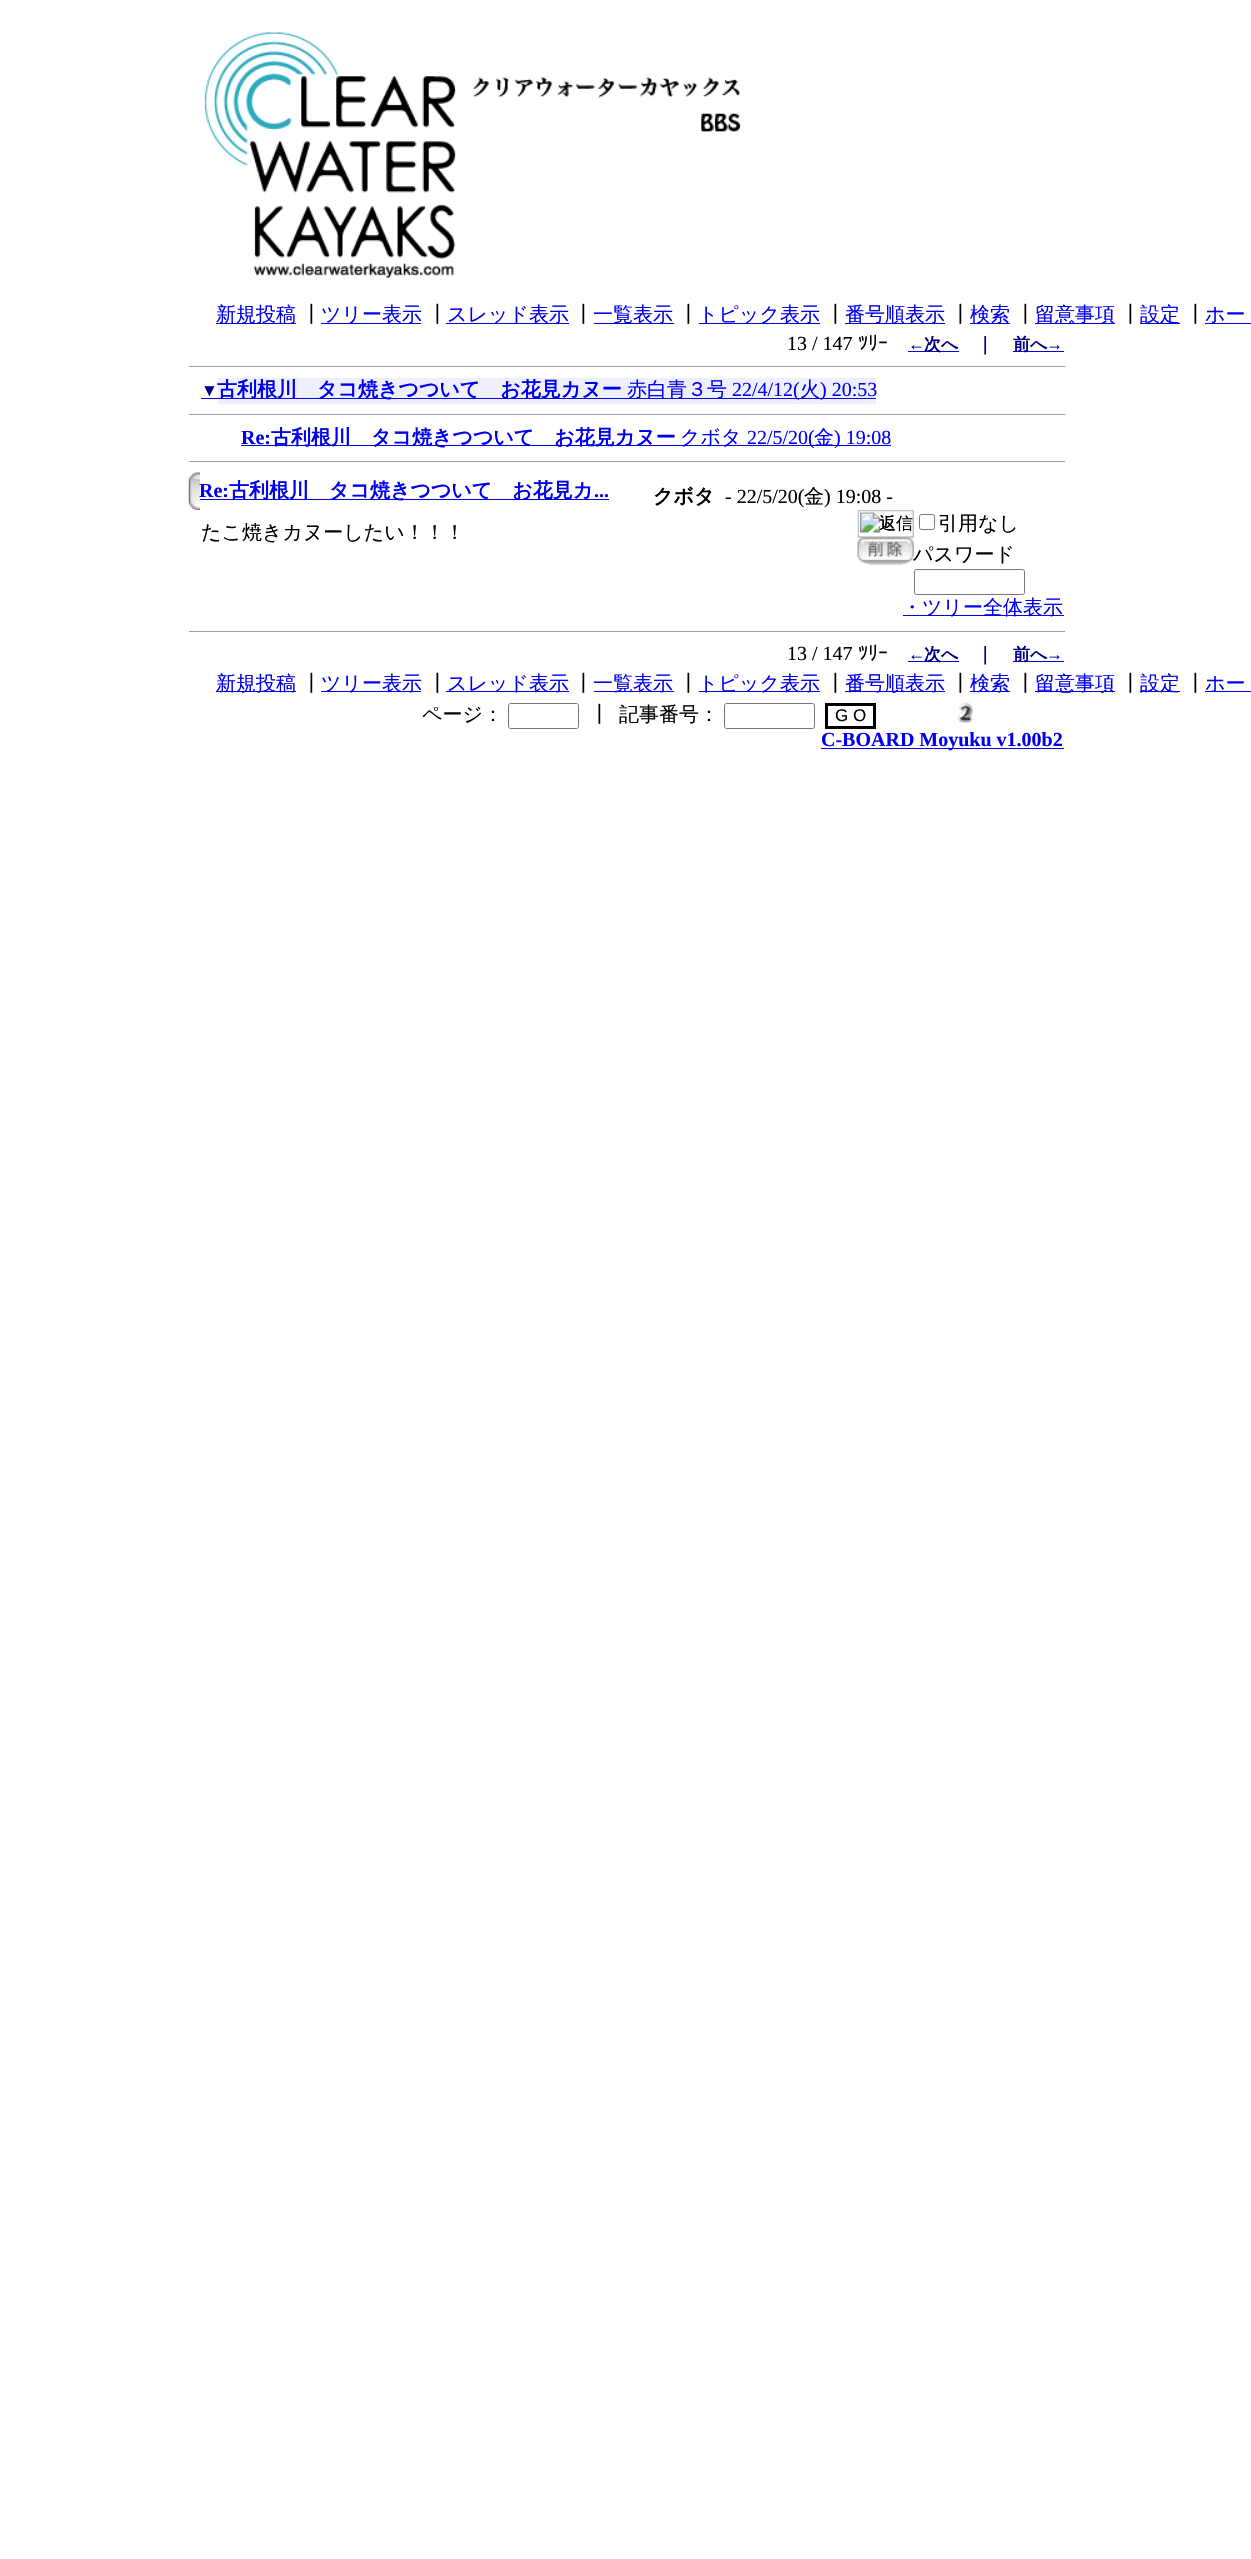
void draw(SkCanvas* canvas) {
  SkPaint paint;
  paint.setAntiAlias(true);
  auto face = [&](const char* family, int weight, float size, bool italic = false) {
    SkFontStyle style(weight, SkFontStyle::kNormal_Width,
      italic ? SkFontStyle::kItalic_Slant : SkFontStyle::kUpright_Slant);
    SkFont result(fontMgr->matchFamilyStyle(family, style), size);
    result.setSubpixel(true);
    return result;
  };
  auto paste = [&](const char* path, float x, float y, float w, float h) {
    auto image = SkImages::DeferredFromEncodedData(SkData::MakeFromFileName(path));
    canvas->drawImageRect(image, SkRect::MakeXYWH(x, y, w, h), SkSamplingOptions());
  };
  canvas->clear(0xffffffff);
  paste("img/1.png", 204, 32, 537, 246);
  {
    const struct { float x, y, w, h; SkColor color; } items[] = {
      {216, 323, 80, 1, 0xff0000ee},
      {321, 323, 100, 1, 0xff0000ee},
      {446, 323, 123, 1, 0xff0000ee},
      {594, 323, 80, 1, 0xff0000ee},
      {699, 323, 121, 1, 0xff0000ee},
      {845, 323, 100, 1, 0xff0000ee},
      {970, 323, 40, 1, 0xff0000ee},
      {1035, 323, 80, 1, 0xff0000ee},
      {1140, 323, 40, 1, 0xff0000ee},
      {1205, 323, 46, 1, 0xff0000ee},
      {908, 351, 51, 1, 0xff0000ee},
      {1013, 351, 51, 1, 0xff0000ee},
      {189, 366, 877, 1, 0xff9f9f9f},
      {1065, 366, 1, 1, 0xffeeeeee},
      {218, 378, 658, 26, 0xffeff0ff},
      {201, 398, 675, 1, 0xff0000ee},
      {189, 414, 877, 1, 0xff9f9f9f},
      {1065, 414, 1, 1, 0xffeeeeee},
      {241, 445, 650, 1, 0xff0000ee},
      {189, 461, 877, 1, 0xff9f9f9f},
      {1065, 461, 1, 1, 0xffeeeeee},
    };
    for (auto [x, y, w, h, color] : items) {
      paint.setColor(color);
      canvas->drawRect(SkRect::MakeXYWH(x, y, w, h), paint);
    }
  }
  paste("img/2.png", 188, 472, 12, 38);
  paint.setColor(0xff0000ee);
  canvas->drawRect(SkRect::MakeXYWH(200, 499, 409, 1), paint);
  paste("img/3.png", 857, 510, 56, 28);
  paint.setStroke(true);
  paint.setStrokeWidth(1);
  paint.setColor(0xffc0c0c0);
  canvas->drawRect(SkRect::MakeXYWH(858.5f, 510.5f, 55, 27), paint);
  paint.setColor(0xff767676);
  canvas->drawRoundRect(SkRect::MakeXYWH(919.5f, 514.5f, 15, 15), 2, 2, paint);
  paste("img/4.png", 857, 537, 57, 28);
  canvas->drawRoundRect(SkRect::MakeXYWH(914.5f, 569.5f, 110, 25), 2, 2, paint);
  paint.setStroke(false);
  {
    const struct { float x, y, w, h; SkColor color; } items[] = {
      {903, 615, 161, 1, 0xff0000ee},
      {189, 631, 877, 1, 0xff9f9f9f},
      {1065, 631, 1, 1, 0xffeeeeee},
      {908, 661, 51, 1, 0xff0000ee},
      {1013, 661, 51, 1, 0xff0000ee},
      {216, 691, 80, 1, 0xff0000ee},
      {321, 691, 100, 1, 0xff0000ee},
      {446, 691, 123, 1, 0xff0000ee},
      {594, 691, 80, 1, 0xff0000ee},
      {699, 691, 121, 1, 0xff0000ee},
      {845, 691, 100, 1, 0xff0000ee},
      {970, 691, 40, 1, 0xff0000ee},
      {1035, 691, 80, 1, 0xff0000ee},
      {1140, 691, 40, 1, 0xff0000ee},
      {1205, 691, 46, 1, 0xff0000ee},
    };
    for (auto [x, y, w, h, color] : items) {
      paint.setColor(color);
      canvas->drawRect(SkRect::MakeXYWH(x, y, w, h), paint);
    }
  }
  paint.setStroke(true);
  paint.setColor(0xff767676);
  canvas->drawRoundRect(SkRect::MakeXYWH(508.5f, 703.5f, 70, 25), 2, 2, paint);
  canvas->drawRoundRect(SkRect::MakeXYWH(724.5f, 703.5f, 90, 25), 2, 2, paint);
  paint.setStrokeWidth(3);
  paint.setColor(0xff000000);
  canvas->drawRect(SkRect::MakeXYWH(826.5f, 704.5f, 48, 23), paint);
  paste("img/5.png", 957, 702, 16, 21);
  paint.setStroke(false);
  paint.setColor(0xff0000ee);
  canvas->drawRect(SkRect::MakeXYWH(821, 748, 243, 1), paint);
  auto f0 = face("WenQuanYi Zen Hei", 500, 20);
  canvas->drawString("新規投稿", 216, 321, f0, paint);
  paint.setColor(0xff000000);
  canvas->drawString("┃", 301, 321, f0, paint);
  paint.setColor(0xff0000ee);
  canvas->drawString("ツリー表示", 321, 321, f0, paint);
  paint.setColor(0xff000000);
  canvas->drawString("┃", 427, 321, f0, paint);
  paint.setColor(0xff0000ee);
  canvas->drawString("スレッド表示", 447, 321, f0, paint);
  paint.setColor(0xff000000);
  canvas->drawString("┃", 573, 321, f0, paint);
  paint.setColor(0xff0000ee);
  canvas->drawString("一覧表示", 593, 321, f0, paint);
  paint.setColor(0xff000000);
  canvas->drawString("┃", 678, 321, f0, paint);
  paint.setColor(0xff0000ee);
  canvas->drawString("トピック表示", 698, 321, f0, paint);
  paint.setColor(0xff000000);
  canvas->drawString("┃", 825, 321, f0, paint);
  paint.setColor(0xff0000ee);
  canvas->drawString("番号順表示", 845, 321, f0, paint);
  paint.setColor(0xff000000);
  canvas->drawString("┃", 950, 321, f0, paint);
  paint.setColor(0xff0000ee);
  canvas->drawString("検索", 970, 321, f0, paint);
  paint.setColor(0xff000000);
  canvas->drawString("┃", 1015, 321, f0, paint);
  paint.setColor(0xff0000ee);
  canvas->drawString("留意事項", 1035, 321, f0, paint);
  paint.setColor(0xff000000);
  canvas->drawString("┃", 1120, 321, f0, paint);
  paint.setColor(0xff0000ee);
  canvas->drawString("設定", 1140, 321, f0, paint);
  paint.setColor(0xff000000);
  canvas->drawString("┃", 1185, 321, f0, paint);
  paint.setColor(0xff0000ee);
  canvas->drawString("ホー", 1205, 321, f0, paint);
  auto f1 = face("Liberation Serif", 400, 20);
  paint.setColor(0xff000000);
  canvas->drawString("13 / 147", 787, 350, f1, paint);
  auto f2 = face("IPAPGothic", 400, 20);
  canvas->drawString("ﾂﾘｰ", 858, 350, f2, paint);
  auto f3 = face("Liberation Serif", 700, 17);
  paint.setColor(0xff000080);
  canvas->drawString("←", 908, 350, f3, paint);
  auto f4 = face("WenQuanYi Zen Hei", 700, 17);
  canvas->drawString("次へ", 924, 350, f4, paint);
  auto f5 = face("WenQuanYi Zen Hei", 700, 18);
  canvas->drawString("｜", 976, 350, f5, paint);
  canvas->drawString("前へ", 1013, 350, f4, paint);
  canvas->drawString("→", 1046, 350, f3, paint);
  auto f6 = face("Liberation Serif", 400, 17);
  canvas->drawString("▼", 201, 396, f6, paint);
  auto f7 = face("WenQuanYi Zen Hei", 700, 20);
  paint.setColor(0xff0000ee);
  canvas->drawString("古利根川　タコ焼きつついて　お花見カヌー", 217, 396, f7, paint);
  canvas->drawString("赤白青３号", 627, 396, f0, paint);
  canvas->drawString("22/4/12(", 732, 396, f1, paint);
  canvas->drawString("火", 800, 396, f0, paint);
  canvas->drawString(") 20:53", 820, 396, f1, paint);
  auto f8 = face("Liberation Serif", 700, 20);
  canvas->drawString("Re:", 241, 444, f8, paint);
  canvas->drawString("古利根川　タコ焼きつついて　お花見カヌー", 271, 444, f7, paint);
  canvas->drawString("クボタ", 680, 444, f0, paint);
  canvas->drawString("22/5/20(", 747, 444, f1, paint);
  canvas->drawString("金", 814, 444, f0, paint);
  canvas->drawString(") 19:08", 834, 444, f1, paint);
  canvas->drawString("Re:", 199, 497, f8, paint);
  canvas->drawString("古利根川　タコ焼きつついて　お花見カ", 229, 497, f7, paint);
  canvas->drawString("...", 594, 497, f8, paint);
  paint.setColor(0xff000000);
  canvas->drawString("クボタ", 653, 503, f7, paint);
  canvas->drawString("- 22/5/20(", 725, 503, f1, paint);
  canvas->drawString("金", 804, 503, f0, paint);
  canvas->drawString(") 19:08 -", 824, 503, f1, paint);
  canvas->drawString("たこ焼きカヌーしたい！！！", 201, 539, f0, paint);
  auto f9 = face("WenQuanYi Zen Hei", 500, 17);
  canvas->drawString("返信", 879, 529, f9, paint);
  canvas->drawString("引用なし", 938, 530, f0, paint);
  canvas->drawString("パスワード", 913, 561, f0, paint);
  paint.setColor(0xff0000ee);
  canvas->drawString("・ツリー全体表示", 902, 614, f0, paint);
  paint.setColor(0xff000000);
  canvas->drawString("13 / 147", 787, 660, f1, paint);
  canvas->drawString("ﾂﾘｰ", 858, 660, f2, paint);
  paint.setColor(0xff000080);
  canvas->drawString("←", 908, 660, f3, paint);
  canvas->drawString("次へ", 924, 660, f4, paint);
  canvas->drawString("｜", 976, 660, f5, paint);
  canvas->drawString("前へ", 1013, 660, f4, paint);
  canvas->drawString("→", 1046, 660, f3, paint);
  paint.setColor(0xff0000ee);
  canvas->drawString("新規投稿", 216, 690, f0, paint);
  paint.setColor(0xff000000);
  canvas->drawString("┃", 301, 690, f0, paint);
  paint.setColor(0xff0000ee);
  canvas->drawString("ツリー表示", 321, 690, f0, paint);
  paint.setColor(0xff000000);
  canvas->drawString("┃", 427, 690, f0, paint);
  paint.setColor(0xff0000ee);
  canvas->drawString("スレッド表示", 447, 690, f0, paint);
  paint.setColor(0xff000000);
  canvas->drawString("┃", 573, 690, f0, paint);
  paint.setColor(0xff0000ee);
  canvas->drawString("一覧表示", 593, 690, f0, paint);
  paint.setColor(0xff000000);
  canvas->drawString("┃", 678, 690, f0, paint);
  paint.setColor(0xff0000ee);
  canvas->drawString("トピック表示", 698, 690, f0, paint);
  paint.setColor(0xff000000);
  canvas->drawString("┃", 825, 690, f0, paint);
  paint.setColor(0xff0000ee);
  canvas->drawString("番号順表示", 845, 690, f0, paint);
  paint.setColor(0xff000000);
  canvas->drawString("┃", 950, 690, f0, paint);
  paint.setColor(0xff0000ee);
  canvas->drawString("検索", 970, 690, f0, paint);
  paint.setColor(0xff000000);
  canvas->drawString("┃", 1015, 690, f0, paint);
  paint.setColor(0xff0000ee);
  canvas->drawString("留意事項", 1035, 690, f0, paint);
  paint.setColor(0xff000000);
  canvas->drawString("┃", 1120, 690, f0, paint);
  paint.setColor(0xff0000ee);
  canvas->drawString("設定", 1140, 690, f0, paint);
  paint.setColor(0xff000000);
  canvas->drawString("┃", 1185, 690, f0, paint);
  paint.setColor(0xff0000ee);
  canvas->drawString("ホー", 1205, 690, f0, paint);
  paint.setColor(0xff000000);
  {
    const struct { const char* s; float x, y; } items[] = {
      {"ページ：", 422, 721},
      {"┃", 589, 721},
      {"記事番号：", 619, 721},
    };
    for (auto [s, x, y] : items) {
      canvas->drawString(s, x, y, f0, paint);
    }
  }
  auto f10 = face("Liberation Sans", 400, 17);
  canvas->drawString("G O", 835, 721, f10, paint);
  paint.setColor(0xff0000ee);
  canvas->drawString("C-BOARD Moyuku v1.00b2", 821, 746, f8, paint);
}
